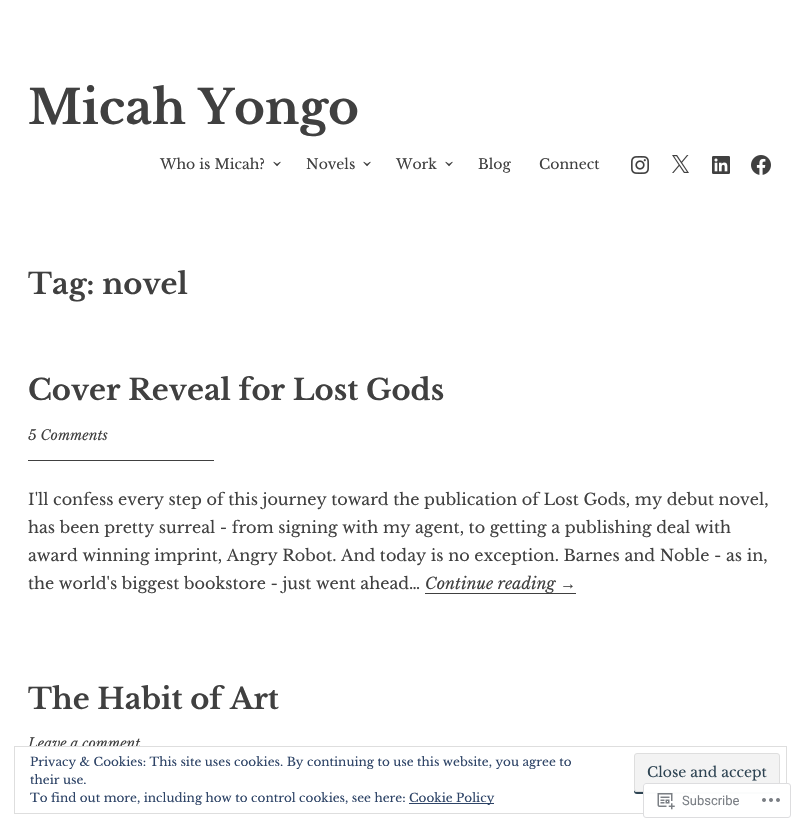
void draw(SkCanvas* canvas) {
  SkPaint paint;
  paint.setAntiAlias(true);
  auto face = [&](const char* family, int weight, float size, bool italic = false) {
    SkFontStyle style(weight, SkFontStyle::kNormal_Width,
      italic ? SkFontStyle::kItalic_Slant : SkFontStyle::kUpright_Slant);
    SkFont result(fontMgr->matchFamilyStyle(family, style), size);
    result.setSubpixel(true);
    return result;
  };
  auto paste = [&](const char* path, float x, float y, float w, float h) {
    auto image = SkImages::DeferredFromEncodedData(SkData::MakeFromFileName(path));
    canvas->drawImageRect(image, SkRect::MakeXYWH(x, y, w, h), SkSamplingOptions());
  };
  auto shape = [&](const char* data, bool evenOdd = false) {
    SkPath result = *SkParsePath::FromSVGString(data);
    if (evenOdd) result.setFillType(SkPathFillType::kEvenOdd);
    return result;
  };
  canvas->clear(0xffffffff);
  paste("img/1.png", 631, 156, 18, 18);
  paste("img/2.png", 672, 155, 17, 18);
  paste("img/3.png", 712, 156, 18, 18);
  paste("img/4.png", 751, 155, 20, 20);
  paint.setColor(0xff404040);
  canvas->drawRect(SkRect::MakeXYWH(28, 460, 186, 1), paint);
  canvas->drawRect(SkRect::MakeXYWH(425, 593, 151, 1), paint);
  auto f0 = face("Libre Baskerville", 700, 47);
  canvas->drawString("Micah Yongo", 28, 124, f0, paint);
  auto f1 = face("Libre Baskerville", 400, 14);
  canvas->drawString("Who is Micah?", 160, 169, f1, paint);
  auto f2 = face("Libre Baskerville", 400, 23);
  canvas->save();
  canvas->rotate(90, 271, 160);
  canvas->drawString("›", 271, 160, f2, paint);
  canvas->restore();
  canvas->drawString("Novels", 306, 169, f1, paint);
  canvas->save();
  canvas->rotate(90, 361, 160);
  canvas->drawString("›", 361, 160, f2, paint);
  canvas->restore();
  canvas->drawString("Work", 396, 169, f1, paint);
  canvas->save();
  canvas->rotate(90, 443, 160);
  canvas->drawString("›", 443, 160, f2, paint);
  canvas->restore();
  canvas->drawString("Blog", 478, 169, f1, paint);
  canvas->drawString("Connect", 539, 169, f1, paint);
  auto f3 = face("Libre Baskerville", 700, 29);
  canvas->drawString("Tag: novel", 28, 294, f3, paint);
  canvas->drawString("Cover Reveal for Lost Gods", 28, 400, f3, paint);
  auto f4 = face("Libre Baskerville", 400, 14, true);
  canvas->drawString("5 Comments", 28, 440, f4, paint);
  auto f5 = face("Libre Baskerville", 400, 16);
  {
    const struct { const char* s; float x, y; } items[] = {
      {"I'll confess every step of this journey toward the publication of Lost Gods, my debut novel,", 28, 505},
      {"has been pretty surreal - from signing with my agent, to getting a publishing deal with", 28, 533},
      {"award winning imprint, Angry Robot. And today is no exception. Barnes and Noble - as in,", 28, 561},
      {"the world's biggest bookstore - just went ahead…", 28, 589},
    };
    for (auto [s, x, y] : items) {
      canvas->drawString(s, x, y, f5, paint);
    }
  }
  auto f6 = face("Libre Baskerville", 400, 16, true);
  canvas->drawString("Continue reading", 425, 589, f6, paint);
  auto f7 = face("Liberation Serif", 400, 16, true);
  canvas->drawString("→", 560, 589, f7, paint);
  canvas->drawString("The Habit of Art", 28, 709, f3, paint);
  canvas->drawString("Leave a comment", 28, 748, f4, paint);
  paint.setColor(0xffffffff);
  canvas->drawRect(SkRect::MakeXYWH(27, 747, 112, 2), paint);
  paint.setStroke(true);
  paint.setStrokeWidth(1);
  paint.setColor(0xffdedede);
  canvas->drawRect(SkRect::MakeXYWH(14.5f, 746.5f, 772, 67), paint);
  auto f8 = face("Libre Baskerville", 400, 12);
  paint.setStroke(false);
  paint.setColor(0xff2e4467);
  canvas->drawString("Privacy & Cookies: This site uses cookies. By continuing to use this website, you agree to", 30, 766, f8, paint);
  canvas->drawString("their use.", 30, 784, f8, paint);
  paint.setColor(0xff2e4453);
  canvas->drawPath(shape("M634 789V791C634 793 635 794 637 794H777C779 794 780 793 780 791V789C780 791 779 792 777 792H637C635 792 634 791 634 789Z"), paint);
  paint.setColor(0xfff3f3f3);
  canvas->drawRoundRect(SkRect::MakeXYWH(634.5f, 753.5f, 145, 38), 2.5f, 2.5f, paint);
  paint.setStroke(true);
  paint.setColor(0xffdedede);
  canvas->drawRoundRect(SkRect::MakeXYWH(634.5f, 753.5f, 145, 38), 2.5f, 2.5f, paint);
  paint.setStroke(false);
  paint.setColor(0xff2e4453);
  canvas->drawString("Close and accept", 647, 777, f1, paint);
  paint.setColor(0xff2e4467);
  canvas->drawString("To find out more, including how to control cookies, see here:", 30, 802, f8, paint);
  canvas->drawRect(SkRect::MakeXYWH(409, 803, 85, 1), paint);
  canvas->drawString("Cookie Policy", 409, 802, f8, paint);
  paint.setColor(0xfaffffff);
  canvas->drawRoundRect(SkRect::MakeXYWH(643, 783, 148, 35), 3, 3, paint);
  paint.setStroke(true);
  paint.setColor(0xfadcdcde);
  canvas->drawRoundRect(SkRect::MakeXYWH(643.5f, 783.5f, 147, 34), 2.5f, 2.5f, paint);
  paste("img/5.png", 657, 793, 18, 17);
  auto f9 = face("Roboto", 400, 13);
  paint.setStroke(false);
  paint.setColor(0xff7b7f85);
  canvas->drawString("Subscribe", 682, 805, f9, paint);
  paste("img/6.png", 762, 798, 18, 4);
}
